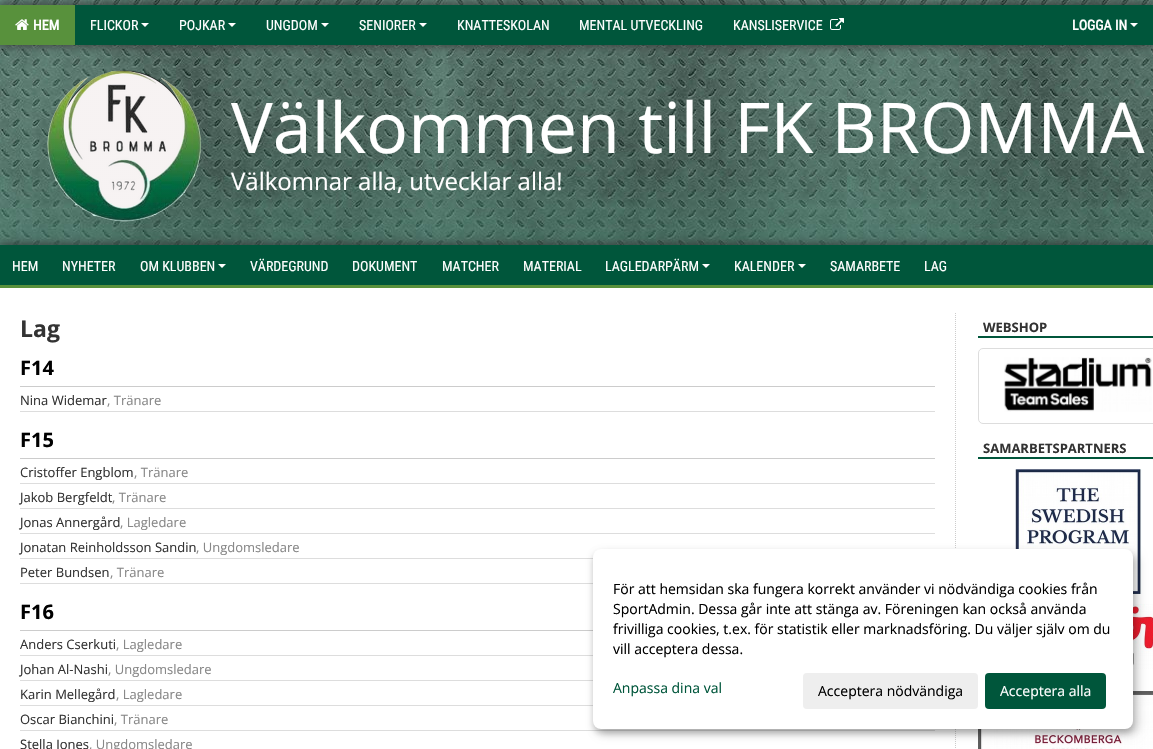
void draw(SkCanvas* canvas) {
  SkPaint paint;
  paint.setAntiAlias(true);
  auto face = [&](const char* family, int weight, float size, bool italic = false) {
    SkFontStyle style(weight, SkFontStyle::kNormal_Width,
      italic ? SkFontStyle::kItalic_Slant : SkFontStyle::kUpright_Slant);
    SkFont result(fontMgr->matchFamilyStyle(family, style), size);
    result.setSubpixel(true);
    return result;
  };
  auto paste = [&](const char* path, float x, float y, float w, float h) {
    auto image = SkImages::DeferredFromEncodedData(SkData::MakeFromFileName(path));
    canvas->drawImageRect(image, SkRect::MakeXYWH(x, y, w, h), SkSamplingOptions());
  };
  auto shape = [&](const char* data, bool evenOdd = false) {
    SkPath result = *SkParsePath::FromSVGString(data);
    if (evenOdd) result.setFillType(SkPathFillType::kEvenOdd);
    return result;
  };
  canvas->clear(0xffffffff);
  paste("img/1.png", 0, 0, 1153, 245);
  paint.setColor(0xff333333);
  paint.setMaskFilter(SkMaskFilter::MakeBlur(kNormal_SkBlurStyle, 5));
  canvas->drawRect(SkRect::MakeXYWH(0, 5, 1153, 40), paint);
  paint.setMaskFilter(nullptr);
  paint.setColor(0xff00563b);
  canvas->drawRect(SkRect::MakeXYWH(75, 5, 1078, 40), paint);
  paint.setColor(0xff58913c);
  canvas->drawRect(SkRect::MakeXYWH(0, 5, 75, 40), paint);
  paste("img/2.png", 15, 19, 14, 11);
  paint.setColor(0xffffffff);
  canvas->drawPath(shape("M141 23H149L145 27Z"), paint);
  canvas->drawPath(shape("M228 23H236L232 27Z"), paint);
  canvas->drawPath(shape("M321 23H329L325 27Z"), paint);
  canvas->drawPath(shape("M419 23H427L423 27Z"), paint);
  paste("img/3.png", 830, 18, 14, 12);
  canvas->drawPath(shape("M1130 23H1138L1134 27Z"), paint);
  paste("img/4.png", 47, 70, 155, 152);
  paint.setColor(0xff333333);
  paint.setMaskFilter(SkMaskFilter::MakeBlur(kNormal_SkBlurStyle, 5));
  canvas->drawRect(SkRect::MakeXYWH(0, 245, 1153, 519), paint);
  paint.setMaskFilter(nullptr);
  paint.setColor(0xffffffff);
  canvas->drawRect(SkRect::MakeXYWH(0, 288, 1153, 461), paint);
  paint.setColor(0xff00563b);
  canvas->drawRect(SkRect::MakeXYWH(0, 245, 1153, 40), paint);
  paint.setColor(0xffffffff);
  canvas->drawPath(shape("M218 264H226L222 268Z"), paint);
  canvas->drawPath(shape("M702 264H710L706 268Z"), paint);
  canvas->drawPath(shape("M798 264H806L802 268Z"), paint);
  {
    const struct { float x, y, w, h; SkColor color; } items[] = {
      {0, 285, 1153, 3, 0xff58913c},
      {20, 386, 915, 1, 0xffcccccc},
      {20, 411, 915, 1, 0xffdddddd},
      {20, 458, 915, 1, 0xffcccccc},
      {20, 483, 915, 1, 0xffdddddd},
      {20, 508, 915, 1, 0xffdddddd},
      {20, 533, 915, 1, 0xffdddddd},
      {20, 558, 573, 1, 0xffdddddd},
      {20, 583, 573, 1, 0xffdddddd},
      {20, 630, 573, 1, 0xffcccccc},
      {20, 655, 573, 1, 0xffdddddd},
      {20, 680, 573, 1, 0xffdddddd},
      {20, 705, 573, 1, 0xffdddddd},
      {20, 730, 915, 1, 0xffdddddd},
    };
    for (auto [x, y, w, h, color] : items) {
      paint.setColor(color);
      canvas->drawRect(SkRect::MakeXYWH(x, y, w, h), paint);
    }
  }
  paint.setStroke(true);
  paint.setStrokeWidth(1);
  paint.setColor(0xffcccccc);
  paint.setPathEffect(SkDashPathEffect::Make({{1, 1}}, 0));
  canvas->drawPath(shape("M955.5 313V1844"), paint);
  paint.setPathEffect(nullptr);
  paint.setStroke(false);
  paint.setColor(0xff00563b);
  canvas->drawRect(SkRect::MakeXYWH(978, 336, 175, 2), paint);
  paint.setStroke(true);
  paint.setColor(0xffdddddd);
  canvas->drawRoundRect(SkRect::MakeXYWH(978.5f, 348.5f, 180, 75), 4.5f, 4.5f, paint);
  paste("img/5.png", 1004, 357, 148, 55);
  paint.setStroke(false);
  paint.setColor(0xff00563b);
  canvas->drawRect(SkRect::MakeXYWH(978, 457, 175, 2), paint);
  paste("img/6.png", 1015, 469, 127, 125);
  paste("img/7.png", 1133, 604, 20, 65);
  paste("img/8.png", 978, 691, 175, 58);
  paint.setColor(0x30000000);
  paint.setMaskFilter(SkMaskFilter::MakeBlur(kNormal_SkBlurStyle, 5));
  canvas->drawRoundRect(SkRect::MakeXYWH(598, 554, 540, 180), 8, 8, paint);
  paint.setMaskFilter(nullptr);
  paint.setColor(0x33000000);
  paint.setMaskFilter(SkMaskFilter::MakeBlur(kNormal_SkBlurStyle, 3));
  canvas->drawRoundRect(SkRect::MakeXYWH(593, 553, 540, 180), 8, 8, paint);
  paint.setMaskFilter(nullptr);
  paint.setColor(0xffffffff);
  canvas->drawRoundRect(SkRect::MakeXYWH(593, 549, 540, 180), 8, 8, paint);
  paint.setColor(0xffeeeeee);
  canvas->drawRoundRect(SkRect::MakeXYWH(803, 673, 175, 36), 4, 4, paint);
  paint.setColor(0xff00563b);
  canvas->drawRoundRect(SkRect::MakeXYWH(985, 673, 121, 36), 4, 4, paint);
  auto f0 = face("Roboto Condensed", 700, 14);
  paint.setColor(0xffffffff);
  canvas->drawString("HEM", 33, 30, f0, paint);
  auto f1 = face("Roboto Condensed", 400, 14);
  {
    const struct { const char* s; float x, y; } items[] = {
      {"FLICKOR", 90, 30},
      {"POJKAR", 179, 30},
      {"UNGDOM", 266, 30},
      {"SENIORER", 359, 30},
      {"KNATTESKOLAN", 457, 30},
      {"MENTAL UTVECKLING", 579, 30},
      {"KANSLISERVICE", 733, 30},
    };
    for (auto [s, x, y] : items) {
      canvas->drawString(s, x, y, f1, paint);
    }
  }
  canvas->drawString("LOGGA IN", 1072, 30, f0, paint);
  auto f2 = face("Open Sans", 400, 70);
  canvas->drawString("Välkommen till FK BROMMA", 231, 153, f2, paint);
  auto f3 = face("Open Sans", 400, 24);
  canvas->drawString("Välkomnar alla, utvecklar alla!", 231, 190, f3, paint);
  {
    const struct { const char* s; float x, y; } items[] = {
      {"HEM", 12, 271},
      {"NYHETER", 62, 271},
      {"OM KLUBBEN", 140, 271},
      {"VÄRDEGRUND", 250, 271},
      {"DOKUMENT", 352, 271},
      {"MATCHER", 442, 271},
      {"MATERIAL", 523, 271},
      {"LAGLEDARPÄRM", 605, 271},
      {"KALENDER", 734, 271},
      {"SAMARBETE", 830, 271},
      {"LAG", 924, 271},
    };
    for (auto [s, x, y] : items) {
      canvas->drawString(s, x, y, f1, paint);
    }
  }
  auto f4 = face("Open Sans", 700, 23);
  paint.setColor(0xff333333);
  canvas->drawString("Lag", 20, 337, f4, paint);
  auto f5 = face("Open Sans", 700, 20);
  paint.setColor(0xff000000);
  canvas->drawString("F14", 20, 375, f5, paint);
  auto f6 = face("Open Sans", 400, 13);
  paint.setColor(0xff333333);
  canvas->drawString("Nina Widemar", 20, 405, f6, paint);
  paint.setColor(0xff888888);
  canvas->drawString(", Tränare", 107, 405, f6, paint);
  paint.setColor(0xff000000);
  canvas->drawString("F15", 20, 447, f5, paint);
  paint.setColor(0xff333333);
  canvas->drawString("Cristoffer Engblom", 20, 477, f6, paint);
  paint.setColor(0xff888888);
  canvas->drawString(", Tränare", 134, 477, f6, paint);
  paint.setColor(0xff333333);
  canvas->drawString("Jakob Bergfeldt", 20, 502, f6, paint);
  paint.setColor(0xff888888);
  canvas->drawString(", Tränare", 112, 502, f6, paint);
  paint.setColor(0xff333333);
  canvas->drawString("Jonas Annergård", 20, 527, f6, paint);
  paint.setColor(0xff888888);
  canvas->drawString(", Lagledare", 120, 527, f6, paint);
  paint.setColor(0xff333333);
  canvas->drawString("Jonatan Reinholdsson Sandin", 20, 552, f6, paint);
  paint.setColor(0xff888888);
  canvas->drawString(", Ungdomsledare", 196, 552, f6, paint);
  paint.setColor(0xff333333);
  canvas->drawString("Peter Bundsen", 20, 577, f6, paint);
  paint.setColor(0xff888888);
  canvas->drawString(", Tränare", 110, 577, f6, paint);
  paint.setColor(0xff000000);
  canvas->drawString("F16", 20, 619, f5, paint);
  paint.setColor(0xff333333);
  canvas->drawString("Anders Cserkuti", 20, 649, f6, paint);
  paint.setColor(0xff888888);
  canvas->drawString(", Lagledare", 116, 649, f6, paint);
  paint.setColor(0xff333333);
  canvas->drawString("Johan Al-Nashi", 20, 674, f6, paint);
  paint.setColor(0xff888888);
  canvas->drawString(", Ungdomsledare", 108, 674, f6, paint);
  paint.setColor(0xff333333);
  canvas->drawString("Karin Mellegård", 20, 699, f6, paint);
  paint.setColor(0xff888888);
  canvas->drawString(", Lagledare", 116, 699, f6, paint);
  paint.setColor(0xff333333);
  canvas->drawString("Oscar Bianchini", 20, 724, f6, paint);
  paint.setColor(0xff888888);
  canvas->drawString(", Tränare", 114, 724, f6, paint);
  paint.setColor(0xff333333);
  canvas->drawString("Stella Jones", 20, 749, f6, paint);
  paint.setColor(0xff888888);
  canvas->drawString(", Ungdomsledare", 89, 749, f6, paint);
  auto f7 = face("Open Sans", 700, 13);
  paint.setColor(0xff333333);
  canvas->drawString("WEBSHOP", 983, 332, f7, paint);
  canvas->drawString("SAMARBETSPARTNERS", 983, 453, f7, paint);
  auto f8 = face("Open Sans", 400, 14);
  paint.setColor(0xff000000);
  {
    const struct { const char* s; float x, y; } items[] = {
      {"För att hemsidan ska fungera korrekt använder vi nödvändiga cookies från", 613, 594},
      {"SportAdmin. Dessa går inte att stänga av. Föreningen kan också använda", 613, 614},
      {"frivilliga cookies, t.ex. för statistik eller marknadsföring. Du väljer själv om du", 613, 634},
      {"vill acceptera dessa.", 613, 654},
    };
    for (auto [s, x, y] : items) {
      canvas->drawString(s, x, y, f8, paint);
    }
  }
  paint.setColor(0xff00563b);
  canvas->drawString("Anpassa dina val", 613, 693, f8, paint);
  paint.setColor(0xff000000);
  canvas->drawString("Acceptera nödvändiga", 818, 696, f8, paint);
  paint.setColor(0xffffffff);
  canvas->drawString("Acceptera alla", 1000, 696, f8, paint);
}
